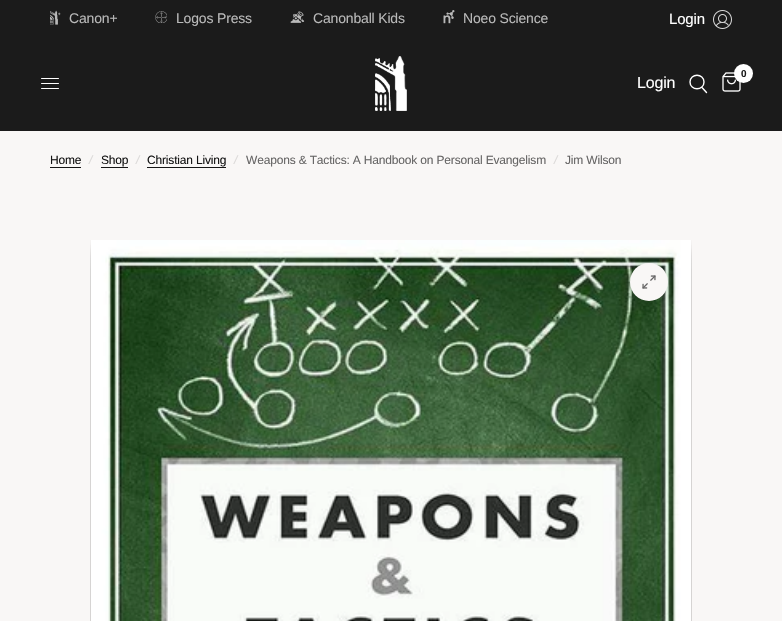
void draw(SkCanvas* canvas) {
  SkPaint paint;
  paint.setAntiAlias(true);
  auto face = [&](const char* family, int weight, float size, bool italic = false) {
    SkFontStyle style(weight, SkFontStyle::kNormal_Width,
      italic ? SkFontStyle::kItalic_Slant : SkFontStyle::kUpright_Slant);
    SkFont result(fontMgr->matchFamilyStyle(family, style), size);
    result.setSubpixel(true);
    return result;
  };
  auto writeSpaced = [&](const char* s, float x, float y, const SkFont& font, const SkPaint& ink, float letter, float word) {
    std::vector<SkGlyphID> glyphs(font.countText(s, strlen(s), SkTextEncoding::kUTF8));
    std::vector<float> xs(glyphs.size());
    font.textToGlyphs(s, strlen(s), SkTextEncoding::kUTF8, glyphs);
    font.getXPos(glyphs, xs, x);
    float extra = 0;
    for (size_t i = 0; i < glyphs.size(); i++) {
      xs[i] += extra;
      extra += letter + word * (glyphs[i] == font.unicharToGlyph(' '));
    }
    canvas->drawTextBlob(SkTextBlob::MakeFromPosHGlyphs(glyphs, xs, y, font), 0, 0, ink);
  };
  auto paste = [&](const char* path, float x, float y, float w, float h) {
    auto image = SkImages::DeferredFromEncodedData(SkData::MakeFromFileName(path));
    canvas->drawImageRect(image, SkRect::MakeXYWH(x, y, w, h), SkSamplingOptions());
  };
  auto shape = [&](const char* data, bool evenOdd = false) {
    SkPath result = *SkParsePath::FromSVGString(data);
    if (evenOdd) result.setFillType(SkPathFillType::kEvenOdd);
    return result;
  };
  canvas->clear(0xfff9f7f6);
  paint.setColor(0xff1b1b1b);
  canvas->drawRect(SkRect::MakeXYWH(0, 0, 782, 131), paint);
  paste("img/1.png", 50, 10, 11, 15);
  paste("img/2.png", 155, 11, 12, 12);
  paste("img/3.png", 290, 11, 15, 12);
  paste("img/4.png", 443, 10, 12, 14);
  paste("img/5.png", 713, 10, 19, 19);
  paint.setColor(0xffffffff);
  canvas->drawRoundRect(SkRect::MakeXYWH(41, 78, 18, 1), 0.5f, 0.5f, paint);
  canvas->drawRoundRect(SkRect::MakeXYWH(41, 83, 18, 1), 0.5f, 0.5f, paint);
  canvas->drawRoundRect(SkRect::MakeXYWH(41, 88, 18, 1), 0.5f, 0.5f, paint);
  paste("img/6.png", 375, 56, 32, 55);
  paint.setStroke(true);
  paint.setStrokeWidth(1.4f);
  paint.setStrokeCap(SkPaint::kRound_Cap);
  paint.setStrokeJoin(SkPaint::kRound_Join);
  canvas->drawPath(shape("M702 87.5L706.5 92.5M704 82C704 91 690 91 690 82C690 73 704 73 704 82Z"), paint);
  paste("img/7.png", 722, 72, 19, 20);
  paint.setStroke(false);
  canvas->drawCircle(743.5f, 73.5f, 9.5f, paint);
  {
    const struct { float x, y, w, h; SkColor color; } items[] = {
      {50, 167, 31, 1, 0xff151515},
      {101, 167, 27, 1, 0xff151515},
      {147, 167, 79, 1, 0xff151515},
    };
    for (auto [x, y, w, h, color] : items) {
      paint.setColor(color);
      canvas->drawRect(SkRect::MakeXYWH(x, y, w, h), paint);
    }
  }
  paste("img/8.png", 90, 240, 602, 381);
  paint.setColor(0x26000000);
  paint.setMaskFilter(SkMaskFilter::MakeBlur(kNormal_SkBlurStyle, 5));
  canvas->drawRoundRect(SkRect::MakeXYWH(630, 265, 38, 38), 19, 19, paint);
  paint.setMaskFilter(nullptr);
  paint.setColor(0xfff9f7f6);
  canvas->drawCircle(649, 282, 19, paint);
  paste("img/9.png", 642, 275, 14, 14);
  auto f0 = face("Liberation Sans", 400, 14);
  paint.setColor(0xffb9b9b9);
  {
    const struct { const char* s; float x, y; } items[] = {
      {"Canon+", 69, 23},
      {"Logos Press", 176, 23},
      {"Canonball Kids", 313, 23},
      {"Noeo Science", 463, 23},
    };
    for (auto [s, x, y] : items) {
      writeSpaced(s, x, y, f0, paint, -0.17f, 0);
    }
  }
  auto f1 = face("Liberation Sans", 400, 15);
  paint.setColor(0xffffffff);
  writeSpaced("Login", 669, 24, f1, paint, -0.17f, 0);
  auto f2 = face("Liberation Sans", 400, 16);
  writeSpaced("Login", 637, 88, f2, paint, -0.17f, 0);
  auto f3 = face("Liberation Sans", 700, 10);
  paint.setColor(0xff1b1b1b);
  writeSpaced("0", 741, 77, f3, paint, -0.17f, 0);
  auto f4 = face("Liberation Sans", 400, 12);
  paint.setColor(0xff151515);
  writeSpaced("Home", 50, 164, f4, paint, -0.17f, 0);
  auto f5 = face("Liberation Sans", 400, 12, true);
  paint.setColor(0xffdcdad9);
  writeSpaced("/", 89, 164, f5, paint, -0.17f, 0);
  paint.setColor(0xff151515);
  writeSpaced("Shop", 101, 164, f4, paint, -0.17f, 0);
  paint.setColor(0xffdcdad9);
  writeSpaced("/", 136, 164, f5, paint, -0.17f, 0);
  paint.setColor(0xff151515);
  writeSpaced("Christian Living", 147, 164, f4, paint, -0.17f, 0);
  paint.setColor(0xffdcdad9);
  writeSpaced("/", 234, 164, f5, paint, -0.17f, 0);
  paint.setColor(0xff666565);
  writeSpaced("Weapons & Tactics: A Handbook on Personal Evangelism", 246, 164, f4, paint, -0.17f, 0);
  paint.setColor(0xffdcdad9);
  writeSpaced("/", 554, 164, f5, paint, -0.17f, 0);
  paint.setColor(0xff666565);
  writeSpaced("Jim Wilson", 565, 164, f4, paint, -0.17f, 0);
}
